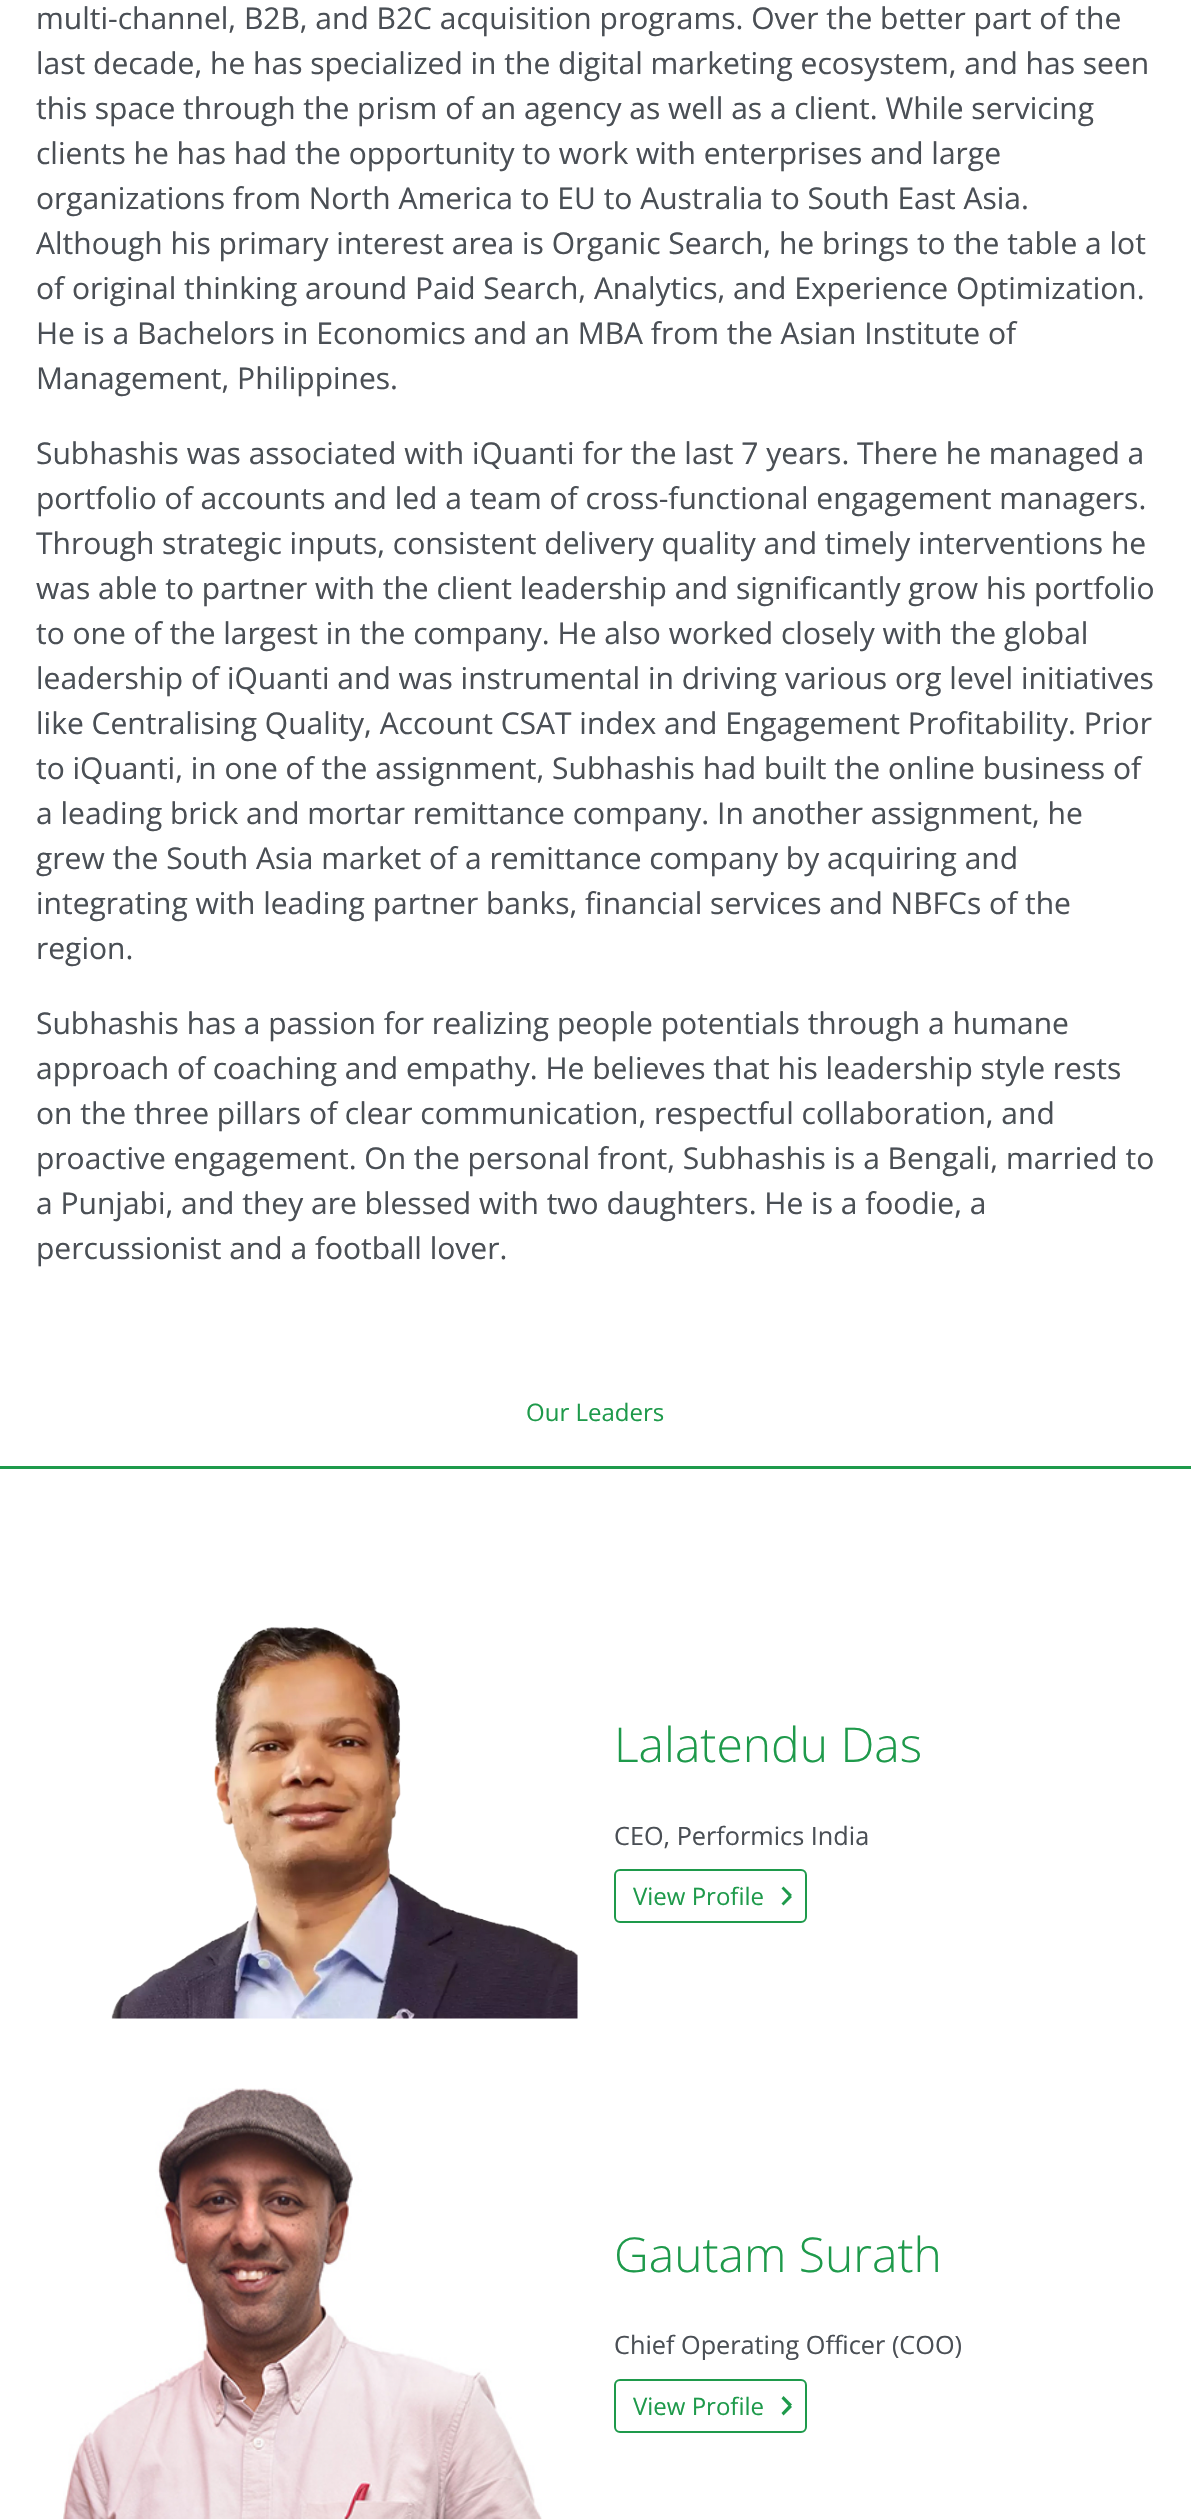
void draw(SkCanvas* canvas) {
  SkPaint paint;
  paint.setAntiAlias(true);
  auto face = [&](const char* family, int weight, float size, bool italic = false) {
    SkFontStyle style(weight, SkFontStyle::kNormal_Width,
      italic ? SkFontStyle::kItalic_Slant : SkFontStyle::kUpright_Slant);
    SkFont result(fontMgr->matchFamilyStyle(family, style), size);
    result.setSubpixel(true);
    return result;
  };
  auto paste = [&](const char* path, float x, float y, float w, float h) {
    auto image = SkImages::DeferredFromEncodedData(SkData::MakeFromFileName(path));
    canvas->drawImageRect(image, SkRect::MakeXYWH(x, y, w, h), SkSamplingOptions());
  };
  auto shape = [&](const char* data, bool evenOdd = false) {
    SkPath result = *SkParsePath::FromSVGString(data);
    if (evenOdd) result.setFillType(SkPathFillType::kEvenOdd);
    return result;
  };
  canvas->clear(0xffffffff);
  paint.setColor(0xff1e9a4b);
  canvas->drawRect(SkRect::MakeXYWH(0, 1466, 1191, 3), paint);
  paste("img/1.png", 111, 1626, 467, 393);
  paint.setStroke(true);
  paint.setStrokeWidth(2);
  canvas->drawRoundRect(SkRect::MakeXYWH(615, 1870, 191, 52), 5, 5, paint);
  paint.setStroke(false);
  canvas->drawPath(shape("M789.5 1897L781.5 1888.5L783.5 1886.5L792 1895Z"), paint);
  canvas->drawPath(shape("M783.5 1905.5L781.5 1903.5L789.5 1895L792 1897Z"), paint);
  paste("img/2.png", 63, 2088, 479, 431);
  paint.setStroke(true);
  canvas->drawRoundRect(SkRect::MakeXYWH(615, 2380, 191, 52), 5, 5, paint);
  paint.setStroke(false);
  canvas->drawPath(shape("M789.5 2407L781.5 2398.5L783.5 2396L792 2404.5Z"), paint);
  canvas->drawPath(shape("M783.5 2415.5L781.5 2413L789.5 2404.5L792 2407Z"), paint);
  auto f0 = face("Open Sans", 400, 30);
  paint.setColor(0xff4a4f55);
  {
    const struct { const char* s; float x, y; } items[] = {
      {"multi-channel, B2B, and B2C acquisition programs. Over the better part of the", 36, 29},
      {"last decade, he has specialized in the digital marketing ecosystem, and has seen", 36, 74},
      {"this space through the prism of an agency as well as a client. While servicing", 36, 119},
      {"clients he has had the opportunity to work with enterprises and large", 36, 164},
      {"organizations from North America to EU to Australia to South East Asia.", 36, 209},
      {"Although his primary interest area is Organic Search, he brings to the table a lot", 36, 254},
      {"of original thinking around Paid Search, Analytics, and Experience Optimization.", 36, 299},
      {"He is a Bachelors in Economics and an MBA from the Asian Institute of", 36, 344},
      {"Management, Philippines.", 36, 389},
      {"Subhashis was associated with iQuanti for the last 7 years. There he managed a", 36, 464},
      {"portfolio of accounts and led a team of cross-functional engagement managers.", 36, 509},
      {"Through strategic inputs, consistent delivery quality and timely interventions he", 36, 554},
      {"was able to partner with the client leadership and significantly grow his portfolio", 36, 599},
      {"to one of the largest in the company. He also worked closely with the global", 36, 644},
      {"leadership of iQuanti and was instrumental in driving various org level initiatives", 36, 689},
      {"like Centralising Quality, Account CSAT index and Engagement Profitability. Prior", 36, 734},
      {"to iQuanti, in one of the assignment, Subhashis had built the online business of", 36, 779},
      {"a leading brick and mortar remittance company. In another assignment, he", 36, 824},
      {"grew the South Asia market of a remittance company by acquiring and", 36, 869},
      {"integrating with leading partner banks, financial services and NBFCs of the", 36, 914},
      {"region.", 36, 959},
      {"Subhashis has a passion for realizing people potentials through a humane", 36, 1034},
      {"approach of coaching and empathy. He believes that his leadership style rests", 36, 1079},
      {"on the three pillars of clear communication, respectful collaboration, and", 36, 1124},
      {"proactive engagement. On the personal front, Subhashis is a Bengali, married to", 36, 1169},
      {"a Punjabi, and they are blessed with two daughters. He is a foodie, a", 36, 1214},
      {"percussionist and a football lover.", 36, 1259},
    };
    for (auto [s, x, y] : items) {
      canvas->drawString(s, x, y, f0, paint);
    }
  }
  auto f1 = face("Open Sans", 400, 24);
  paint.setColor(0xff1e9a4b);
  canvas->drawString("Our Leaders", 526, 1421, f1, paint);
  auto f2 = face("Open Sans", 300, 48);
  canvas->drawString("Lalatendu Das", 614, 1762, f2, paint);
  auto f3 = face("Open Sans", 400, 25.25f);
  paint.setColor(0xff4a4f55);
  canvas->drawString("CEO, Performics India", 614, 1845, f3, paint);
  paint.setColor(0xff1e9a4b);
  canvas->drawString("View Profile", 633, 1905, f1, paint);
  canvas->drawString("Gautam Surath", 614, 2272, f2, paint);
  paint.setColor(0xff4a4f55);
  canvas->drawString("Chief Operating Officer (COO)", 614, 2354, f3, paint);
  paint.setColor(0xff1e9a4b);
  canvas->drawString("View Profile", 633, 2415, f1, paint);
}
